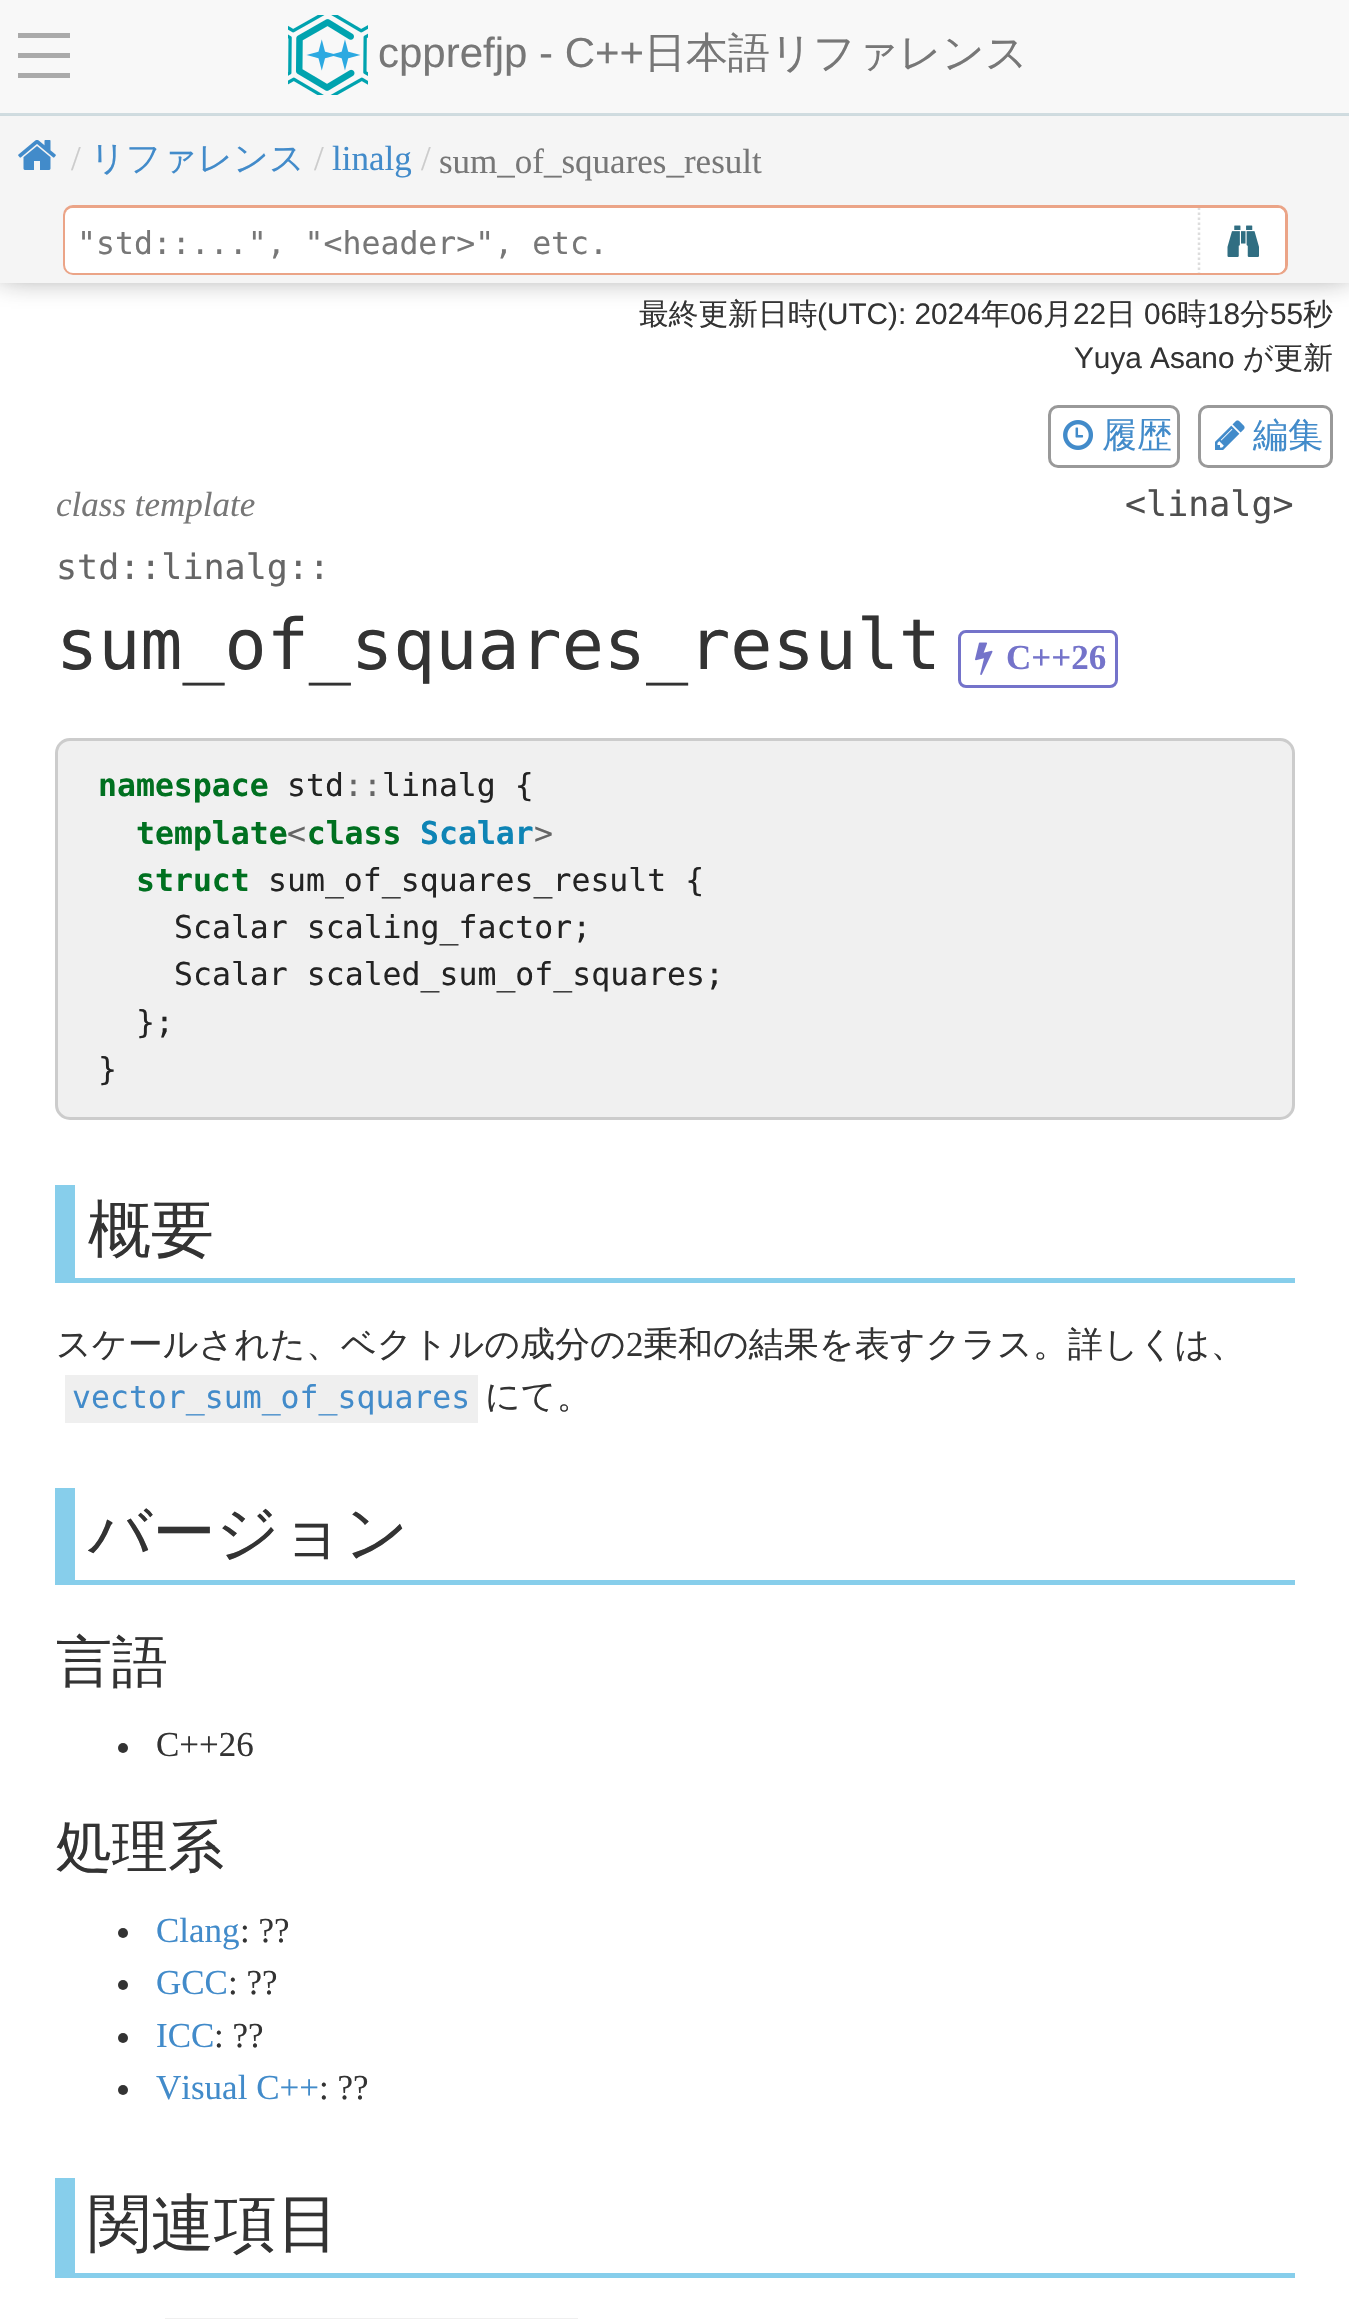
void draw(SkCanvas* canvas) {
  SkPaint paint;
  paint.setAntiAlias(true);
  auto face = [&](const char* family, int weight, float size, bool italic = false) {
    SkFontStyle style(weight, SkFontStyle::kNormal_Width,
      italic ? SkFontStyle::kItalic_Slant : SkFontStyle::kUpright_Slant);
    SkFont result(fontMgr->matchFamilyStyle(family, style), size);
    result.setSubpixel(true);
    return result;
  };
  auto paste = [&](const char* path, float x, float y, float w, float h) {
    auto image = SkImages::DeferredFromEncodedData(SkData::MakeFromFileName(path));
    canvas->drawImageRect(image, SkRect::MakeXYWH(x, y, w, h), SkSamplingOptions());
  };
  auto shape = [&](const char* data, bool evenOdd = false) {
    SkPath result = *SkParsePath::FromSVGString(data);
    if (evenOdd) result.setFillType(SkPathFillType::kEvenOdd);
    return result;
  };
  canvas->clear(0xffffffff);
  paint.setColor(0x99141414);
  paint.setMaskFilter(SkMaskFilter::MakeBlur(kNormal_SkBlurStyle, 15));
  canvas->drawRect(SkRect::MakeXYWH(0, 105, 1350, 168), paint);
  paint.setMaskFilter(nullptr);
  {
    const struct { float x, y, w, h; SkColor color; } items[] = {
      {0, 0, 1349, 113, 0xfff8f8f8},
      {0, 113, 1349, 2, 0xffd0dce0},
      {18, 33, 52, 5, 0xffaaaaaa},
      {18, 53, 52, 5, 0xffaaaaaa},
      {18, 73, 52, 5, 0xffaaaaaa},
    };
    for (auto [x, y, w, h, color] : items) {
      paint.setColor(color);
      canvas->drawRect(SkRect::MakeXYWH(x, y, w, h), paint);
    }
  }
  paste("img/1.png", 288, 15, 80, 80);
  paint.setColor(0xfff5f5f5);
  canvas->drawRect(SkRect::MakeXYWH(0, 116, 1349, 167), paint);
  paint.setColor(0xffcedade);
  canvas->drawRect(SkRect::MakeXYWH(0, 115, 1349, 1), paint);
  paste("img/2.png", 18, 140, 38, 30);
  paint.setStroke(true);
  paint.setStrokeWidth(3);
  paint.setColor(0xffeba487);
  canvas->drawRoundRect(SkRect::MakeXYWH(64.5f, 206.5f, 1222, 67), 8.5f, 8.5f, paint);
  paint.setStroke(false);
  paint.setColor(0xffffffff);
  canvas->drawRoundRect(SkRect::MakeXYWH(65, 208, 1220, 65), 8, 8, paint);
  canvas->drawPath(shape("M1198 208H1277C1281.5 208 1285 211.5 1285 216V265C1285 269.5 1281.5 273 1277 273H1198Z"), paint);
  canvas->save();
  canvas->clipPath(shape("M73 208H1277C1281.5 208 1285 211.5 1285 216V265C1285 269.5 1281.5 273 1277 273H73C68.5 273 65 269.5 65 265V216C65 211.5 68.5 208 73 208Z"), true);
  paint.setStroke(true);
  paint.setStrokeWidth(2.5f);
  paint.setColor(0xffdddddd);
  paint.setPathEffect(SkDashPathEffect::Make({{2.5f, 2.5f}}, 0));
  canvas->drawPath(shape("M1199 207.5V277.5"), paint);
  paint.setPathEffect(nullptr);
  canvas->restore();
  paste("img/3.png", 1227, 225, 32, 32);
  paint.setStrokeWidth(3);
  paint.setColor(0xff999999);
  canvas->drawRoundRect(SkRect::MakeXYWH(1049.5f, 406.5f, 129, 60), 8.5f, 8.5f, paint);
  paste("img/4.png", 1063, 420, 30, 30);
  canvas->drawRoundRect(SkRect::MakeXYWH(1199.5f, 406.5f, 132, 60), 8.5f, 8.5f, paint);
  paste("img/5.png", 1215, 420, 30, 30);
  paint.setColor(0xff7473ca);
  canvas->drawRoundRect(SkRect::MakeXYWH(959.5f, 631.5f, 157, 55), 6.5f, 6.5f, paint);
  paste("img/6.png", 975, 642, 18, 33);
  paint.setStroke(false);
  paint.setColor(0xfff0f0f0);
  canvas->drawRoundRect(SkRect::MakeXYWH(56.5f, 739.5f, 1237, 379), 13.5f, 13.5f, paint);
  paint.setStroke(true);
  paint.setColor(0xffcccccc);
  canvas->drawRoundRect(SkRect::MakeXYWH(56.5f, 739.5f, 1237, 379), 13.5f, 13.5f, paint);
  paint.setStroke(false);
  {
    const struct { float x, y, w, h; SkColor color; } items[] = {
      {75, 1278, 1220, 5, 0xff87ceeb},
      {55, 1185, 20, 98, 0xff87ceeb},
      {65, 1375, 413, 48, 0xffefefef},
      {75, 1580, 1220, 5, 0xff87ceeb},
      {55, 1488, 20, 97, 0xff87ceeb},
    };
    for (auto [x, y, w, h, color] : items) {
      paint.setColor(color);
      canvas->drawRect(SkRect::MakeXYWH(x, y, w, h), paint);
    }
  }
  paint.setColor(0xff333333);
  canvas->drawCircle(123, 1748, 5, paint);
  canvas->drawCircle(123, 1933, 5, paint);
  canvas->drawCircle(123, 1985, 5, paint);
  canvas->drawCircle(123, 2038, 5, paint);
  canvas->drawCircle(123, 2090, 5, paint);
  {
    const struct { float x, y, w, h; SkColor color; } items[] = {
      {75, 2273, 1220, 5, 0xff87ceeb},
      {55, 2178, 20, 100, 0xff87ceeb},
      {165, 2318, 413, 1, 0xffefefef},
    };
    for (auto [x, y, w, h, color] : items) {
      paint.setColor(color);
      canvas->drawRect(SkRect::MakeXYWH(x, y, w, h), paint);
    }
  }
  auto f0 = face("Liberation Sans", 400, 42);
  paint.setColor(0xff777777);
  canvas->drawString("cpprefjp - C++", 378, 67, f0, paint);
  auto f1 = face("WenQuanYi Zen Hei", 500, 42);
  canvas->drawString("日本語リファレンス", 644, 67, f1, paint);
  auto f2 = face("Liberation Serif", 400, 35);
  paint.setColor(0xffcccccc);
  canvas->drawString("/", 71, 170, f2, paint);
  auto f3 = face("WenQuanYi Zen Hei", 500, 35);
  paint.setColor(0xff428bca);
  canvas->drawString("リファレンス", 90, 170, f3, paint);
  paint.setColor(0xffcccccc);
  canvas->drawString("/", 314, 170, f2, paint);
  paint.setColor(0xff428bca);
  canvas->drawString("linalg", 332, 170, f2, paint);
  paint.setColor(0xffcccccc);
  canvas->drawString("/", 421, 170, f2, paint);
  paint.setColor(0xff777777);
  canvas->drawString("sum_of_squares_result", 439, 173, f2, paint);
  auto f4 = face("DejaVu Sans Mono", 400, 31.5f);
  canvas->drawString("\"std::...\", \"<header>\", etc.", 77, 254, f4, paint);
  auto f5 = face("WenQuanYi Zen Hei", 500, 29.75f);
  paint.setColor(0xff333333);
  canvas->drawString("最終更新日時", 639, 324, f5, paint);
  auto f6 = face("Liberation Sans", 400, 29.75f);
  canvas->drawString("(UTC): 2024", 817, 324, f6, paint);
  canvas->drawString("年", 981, 324, f5, paint);
  canvas->drawString("06", 1010, 324, f6, paint);
  canvas->drawString("月", 1043, 324, f5, paint);
  canvas->drawString("22", 1073, 324, f6, paint);
  canvas->drawString("日", 1106, 324, f5, paint);
  canvas->drawString("06", 1144, 324, f6, paint);
  canvas->drawString("時", 1177, 324, f5, paint);
  canvas->drawString("18", 1207, 324, f6, paint);
  canvas->drawString("分", 1240, 324, f5, paint);
  canvas->drawString("55", 1270, 324, f6, paint);
  canvas->drawString("秒", 1303, 324, f5, paint);
  canvas->drawString("Yuya Asano", 1074, 368, f6, paint);
  canvas->drawString("が更新", 1243, 368, f5, paint);
  paint.setColor(0xff428bca);
  canvas->drawString("履歴", 1102, 447, f3, paint);
  canvas->drawString("編集", 1253, 447, f3, paint);
  auto f7 = face("Liberation Serif", 400, 35, true);
  paint.setColor(0xff777777);
  canvas->drawString("class template", 56, 516, f7, paint);
  auto f8 = face("DejaVu Sans Mono", 400, 35);
  paint.setColor(0xff4e4e4e);
  canvas->drawString("<linalg>", 1125, 516, f8, paint);
  paint.setColor(0xff666666);
  canvas->drawString("std::linalg::", 56, 579, f8, paint);
  auto f9 = face("DejaVu Sans Mono", 400, 70);
  paint.setColor(0xff333333);
  canvas->drawString("sum_of_squares_result", 56, 669, f9, paint);
  auto f10 = face("Liberation Serif", 700, 35);
  paint.setColor(0xff7473ca);
  canvas->drawString("C++26", 1006, 669, f10, paint);
  auto f11 = face("DejaVu Sans Mono", 700, 31.5f);
  paint.setColor(0xff007020);
  canvas->drawString("namespace", 98, 796, f11, paint);
  paint.setColor(0xff232323);
  canvas->drawString("std", 287, 796, f4, paint);
  paint.setColor(0xff666666);
  canvas->drawString("::", 344, 796, f4, paint);
  paint.setColor(0xff232323);
  canvas->drawString("linalg {", 382, 796, f4, paint);
  paint.setColor(0xff007020);
  canvas->drawString("template class", 136, 844, f11, paint);
  paint.setColor(0xff0e84b5);
  canvas->drawString("Scalar", 420, 844, f11, paint);
  paint.setColor(0xff666666);
  canvas->drawString("<", 287, 844, f4, paint);
  canvas->drawString(">", 534, 844, f4, paint);
  paint.setColor(0xff007020);
  canvas->drawString("struct", 136, 891, f11, paint);
  paint.setColor(0xff232323);
  {
    const struct { const char* s; float x, y; } items[] = {
      {"sum_of_squares_result {", 268, 891},
      {"Scalar scaling_factor;", 174, 938},
      {"Scalar scaled_sum_of_squares;", 174, 985},
      {"};", 136, 1033},
      {"}", 98, 1080},
    };
    for (auto [s, x, y] : items) {
      canvas->drawString(s, x, y, f4, paint);
    }
  }
  auto f12 = face("WenQuanYi Zen Hei", 500, 63);
  paint.setColor(0xff333333);
  canvas->drawString("概要", 88, 1251, f12, paint);
  canvas->drawString("スケールされた、ベクトルの成分の", 56, 1356, f3, paint);
  canvas->drawString("2", 626, 1356, f2, paint);
  canvas->drawString("乗和の結果を表すクラス。詳しくは、", 643, 1356, f3, paint);
  paint.setColor(0xff428bca);
  canvas->drawString("vector_sum_of_squares", 72, 1408, f4, paint);
  paint.setColor(0xff333333);
  canvas->drawString("にて。", 485, 1408, f3, paint);
  canvas->drawString("バージョン", 88, 1554, f12, paint);
  auto f13 = face("WenQuanYi Zen Hei", 500, 56);
  canvas->drawString("言語", 56, 1681, f13, paint);
  canvas->drawString("C++26", 156, 1756, f2, paint);
  canvas->drawString("処理系", 56, 1866, f13, paint);
  paint.setColor(0xff428bca);
  canvas->drawString("Clang", 156, 1942, f2, paint);
  paint.setColor(0xff333333);
  canvas->drawString(": ?\077", 240, 1942, f2, paint);
  paint.setColor(0xff428bca);
  canvas->drawString("GCC", 156, 1994, f2, paint);
  paint.setColor(0xff333333);
  canvas->drawString(": ?\077", 228, 1994, f2, paint);
  paint.setColor(0xff428bca);
  canvas->drawString("ICC", 156, 2047, f2, paint);
  paint.setColor(0xff333333);
  canvas->drawString(": ?\077", 214, 2047, f2, paint);
  paint.setColor(0xff428bca);
  canvas->drawString("Visual C++", 156, 2099, f2, paint);
  paint.setColor(0xff333333);
  canvas->drawString(": ?\077", 319, 2099, f2, paint);
  canvas->drawString("関連項目", 88, 2245, f12, paint);
}
